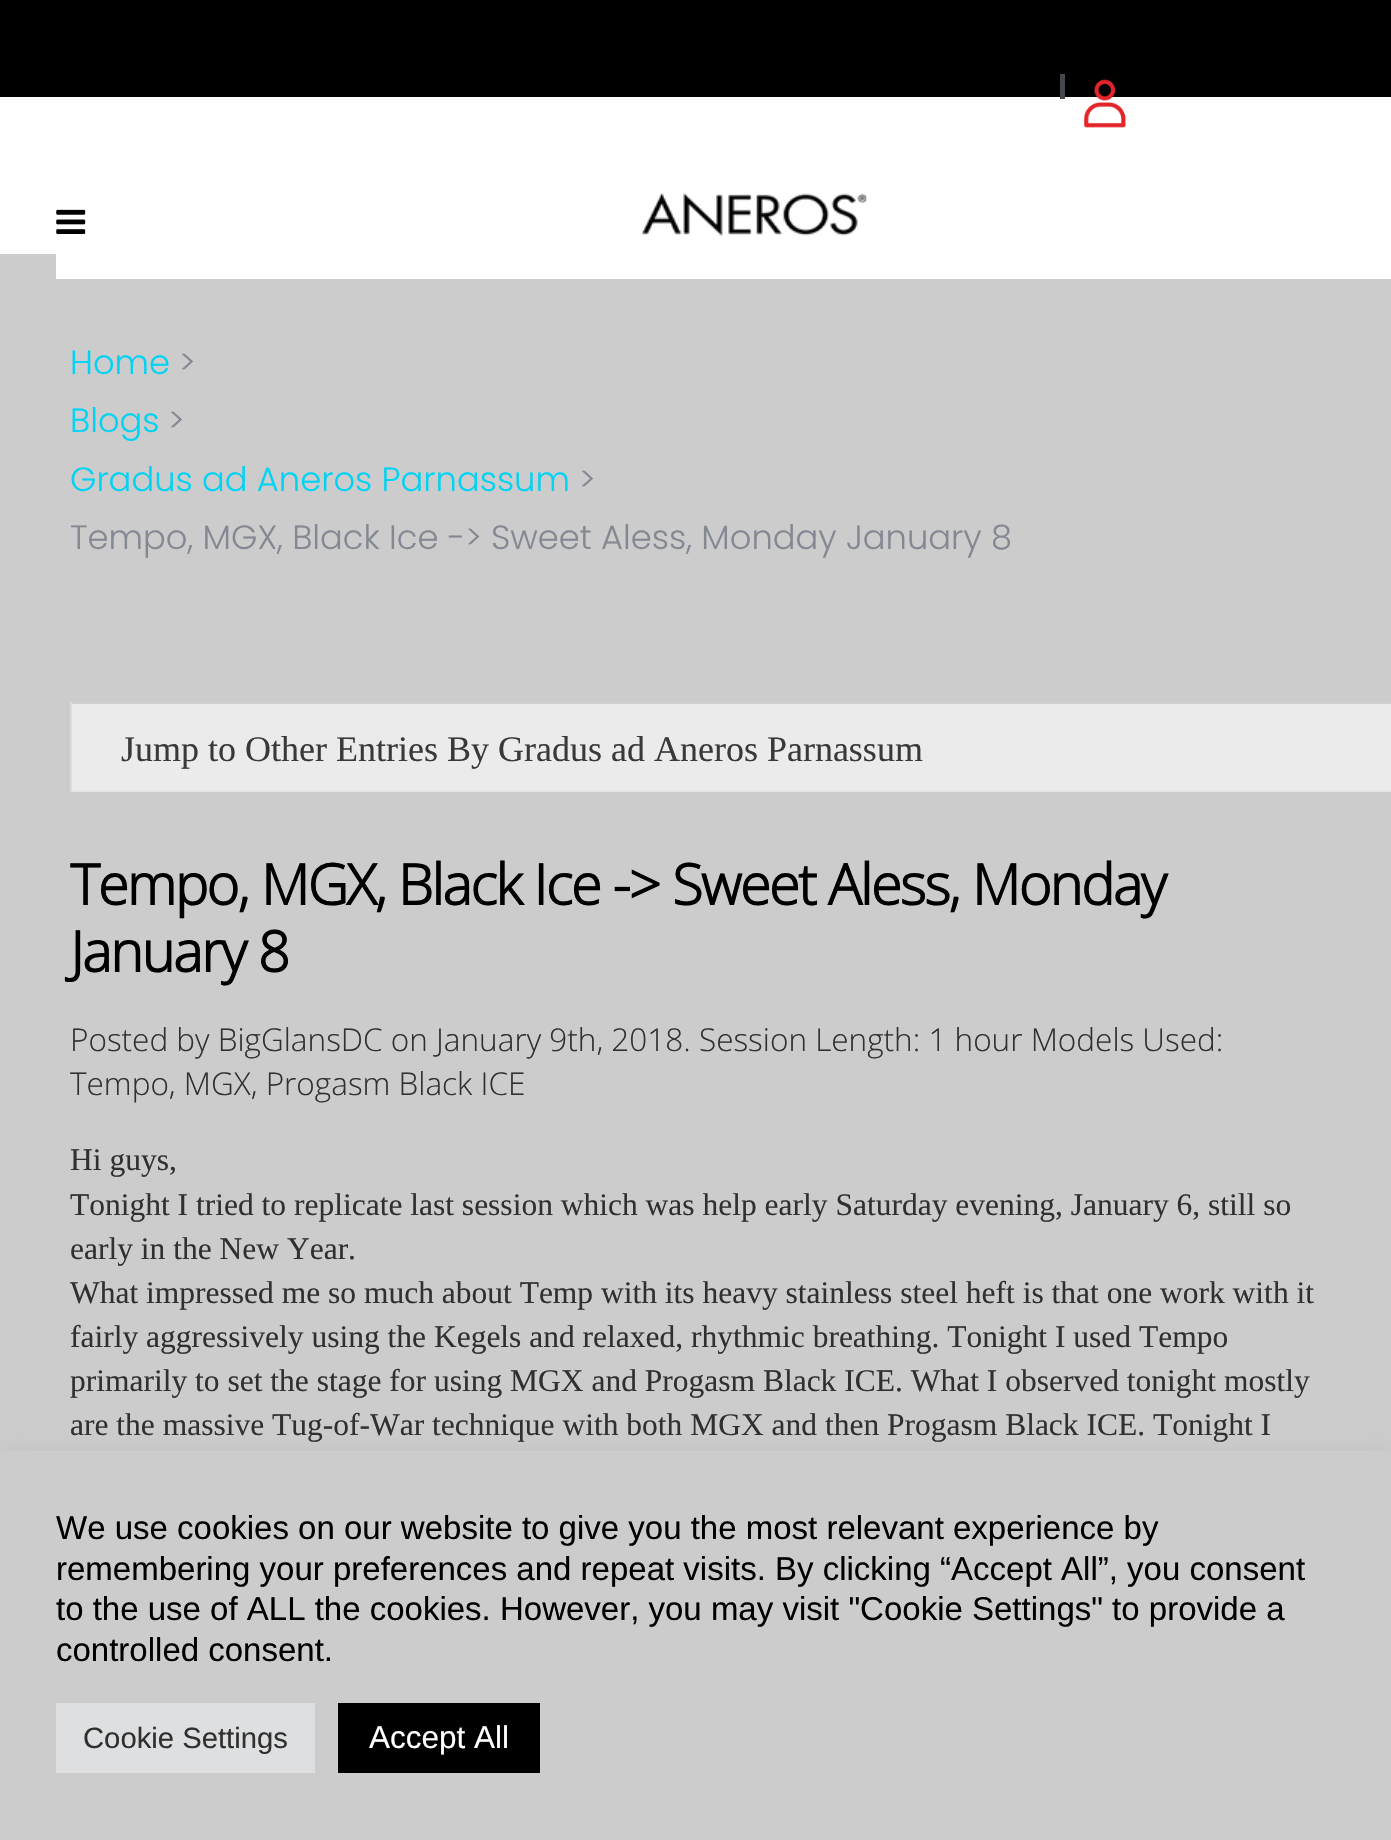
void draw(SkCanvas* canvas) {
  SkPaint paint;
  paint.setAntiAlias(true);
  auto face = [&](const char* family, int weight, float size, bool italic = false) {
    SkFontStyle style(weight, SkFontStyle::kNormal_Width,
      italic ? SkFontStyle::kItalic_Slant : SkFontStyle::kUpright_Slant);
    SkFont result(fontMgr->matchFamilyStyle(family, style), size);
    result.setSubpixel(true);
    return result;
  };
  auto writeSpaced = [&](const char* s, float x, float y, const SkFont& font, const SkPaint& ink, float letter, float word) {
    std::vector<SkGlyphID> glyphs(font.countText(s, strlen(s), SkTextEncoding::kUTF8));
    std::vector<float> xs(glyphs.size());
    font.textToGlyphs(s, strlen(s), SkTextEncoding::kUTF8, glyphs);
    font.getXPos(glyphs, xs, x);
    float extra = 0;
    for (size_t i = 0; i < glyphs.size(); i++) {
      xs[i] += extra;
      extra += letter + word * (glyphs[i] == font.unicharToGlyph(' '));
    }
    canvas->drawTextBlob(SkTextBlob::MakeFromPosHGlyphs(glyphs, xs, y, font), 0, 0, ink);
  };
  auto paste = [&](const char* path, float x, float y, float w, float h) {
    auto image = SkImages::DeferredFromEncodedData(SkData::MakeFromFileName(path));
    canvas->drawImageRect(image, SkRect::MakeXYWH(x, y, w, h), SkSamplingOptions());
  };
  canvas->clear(0xffffffff);
  paint.setColor(0xff000000);
  canvas->drawRect(SkRect::MakeXYWH(0, 0, 1391, 97), paint);
  paint.setColor(0xff44484d);
  canvas->drawRect(SkRect::MakeXYWH(1060, 74, 5, 25), paint);
  paste("img/1.png", 1084, 79, 42, 49);
  paint.setColor(0xffcccccc);
  canvas->drawRect(SkRect::MakeXYWH(0, 254, 1391, 1197), paint);
  paint.setColor(0xffffffff);
  canvas->drawRect(SkRect::MakeXYWH(56, 254, 1335, 25), paint);
  paste("img/2.png", 641, 193, 226, 43);
  paste("img/3.png", 56, 209, 30, 25);
  {
    const struct { float x, y, w, h; SkColor color; } items[] = {
      {72, 704, 1319, 86, 0xffebebeb},
      {70, 702, 1321, 2, 0xffcfcfcf},
      {70, 790, 1321, 2, 0xffe6e6e6},
      {70, 702, 2, 90, 0xffdddddd},
    };
    for (auto [x, y, w, h, color] : items) {
      paint.setColor(color);
      canvas->drawRect(SkRect::MakeXYWH(x, y, w, h), paint);
    }
  }
  paint.setColor(0x4dacabab);
  paint.setMaskFilter(SkMaskFilter::MakeBlur(kNormal_SkBlurStyle, 11));
  canvas->drawRect(SkRect::MakeXYWH(0, 1449, 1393, 389), paint);
  paint.setMaskFilter(nullptr);
  {
    const struct { float x, y, w, h; SkColor color; } items[] = {
      {0, 1451, 1391, 389, 0xffcccccc},
      {56, 1703, 259, 70, 0xffdedfe0},
      {338, 1703, 202, 70, 0xff000000},
    };
    for (auto [x, y, w, h, color] : items) {
      paint.setColor(color);
      canvas->drawRect(SkRect::MakeXYWH(x, y, w, h), paint);
    }
  }
  auto f0 = face("Poppins", 300, 33.75f);
  paint.setColor(0xff00d3f3);
  canvas->drawString("Home", 70, 374, f0, paint);
  paint.setColor(0xff848892);
  canvas->drawString(">", 179, 374, f0, paint);
  paint.setColor(0xff00d3f3);
  canvas->drawString("Blogs", 70, 432, f0, paint);
  paint.setColor(0xff848892);
  canvas->drawString(">", 168, 432, f0, paint);
  paint.setColor(0xff00d3f3);
  canvas->drawString("Gradus ad Aneros Parnassum", 70, 491, f0, paint);
  paint.setColor(0xff848892);
  canvas->drawString(">", 579, 491, f0, paint);
  canvas->drawString("Tempo, MGX, Black Ice -> Sweet Aless, Monday January 8", 70, 549, f0, paint);
  auto f1 = face("Liberation Serif", 400, 36);
  paint.setColor(0xff393939);
  canvas->drawString("Jump to Other Entries By Gradus ad Aneros Parnassum", 121, 761, f1, paint);
  auto f2 = face("Open Sans", 700, 56.25f);
  paint.setColor(0xff000000);
  writeSpaced("Tempo, MGX, Black Ice -> Sweet Aless, Monday", 70, 905, f2, paint, -1.8f, 0);
  writeSpaced("January 8", 70, 972, f2, paint, -1.8f, 0);
  auto f3 = face("Open Sans", 300, 31.5f);
  paint.setColor(0xff303030);
  canvas->drawString("Posted by BigGlansDC on January 9th, 2018. Session Length: 1 hour Models Used:", 70, 1051, f3, paint);
  canvas->drawString("Tempo, MGX, Progasm Black ICE", 70, 1095, f3, paint);
  auto f4 = face("Liberation Serif", 400, 31.5f);
  {
    const struct { const char* s; float x, y; } items[] = {
      {"Hi guys,", 70, 1170},
      {"Tonight I tried to replicate last session which was help early Saturday evening, January 6, still so", 70, 1215},
      {"early in the New Year.", 70, 1259},
      {"What impressed me so much about Temp with its heavy stainless steel heft is that one work with it", 70, 1303},
      {"fairly aggressively using the Kegels and relaxed, rhythmic breathing. Tonight I used Tempo", 70, 1347},
      {"primarily to set the stage for using MGX and Progasm Black ICE. What I observed tonight mostly", 70, 1391},
      {"are the massive Tug-of-War technique with both MGX and then Progasm Black ICE. Tonight I", 70, 1435},
    };
    for (auto [s, x, y] : items) {
      canvas->drawString(s, x, y, f4, paint);
    }
  }
  auto f5 = face("Liberation Sans", 400, 33);
  paint.setColor(0xff000000);
  {
    const struct { const char* s; float x, y; } items[] = {
      {"We use cookies on our website to give you the most relevant experience by", 56, 1539},
      {"remembering your preferences and repeat visits. By clicking “Accept All”, you consent", 56, 1580},
      {"to the use of ALL the cookies. However, you may visit \"Cookie Settings\" to provide a", 56, 1620},
      {"controlled consent.", 56, 1661},
    };
    for (auto [s, x, y] : items) {
      canvas->drawString(s, x, y, f5, paint);
    }
  }
  auto f6 = face("Liberation Sans", 400, 29.25f);
  paint.setColor(0xff303030);
  canvas->drawString("Cookie Settings", 83, 1748, f6, paint);
  auto f7 = face("Liberation Sans", 400, 31.5f);
  paint.setColor(0xffffffff);
  canvas->drawString("Accept All", 369, 1748, f7, paint);
}
